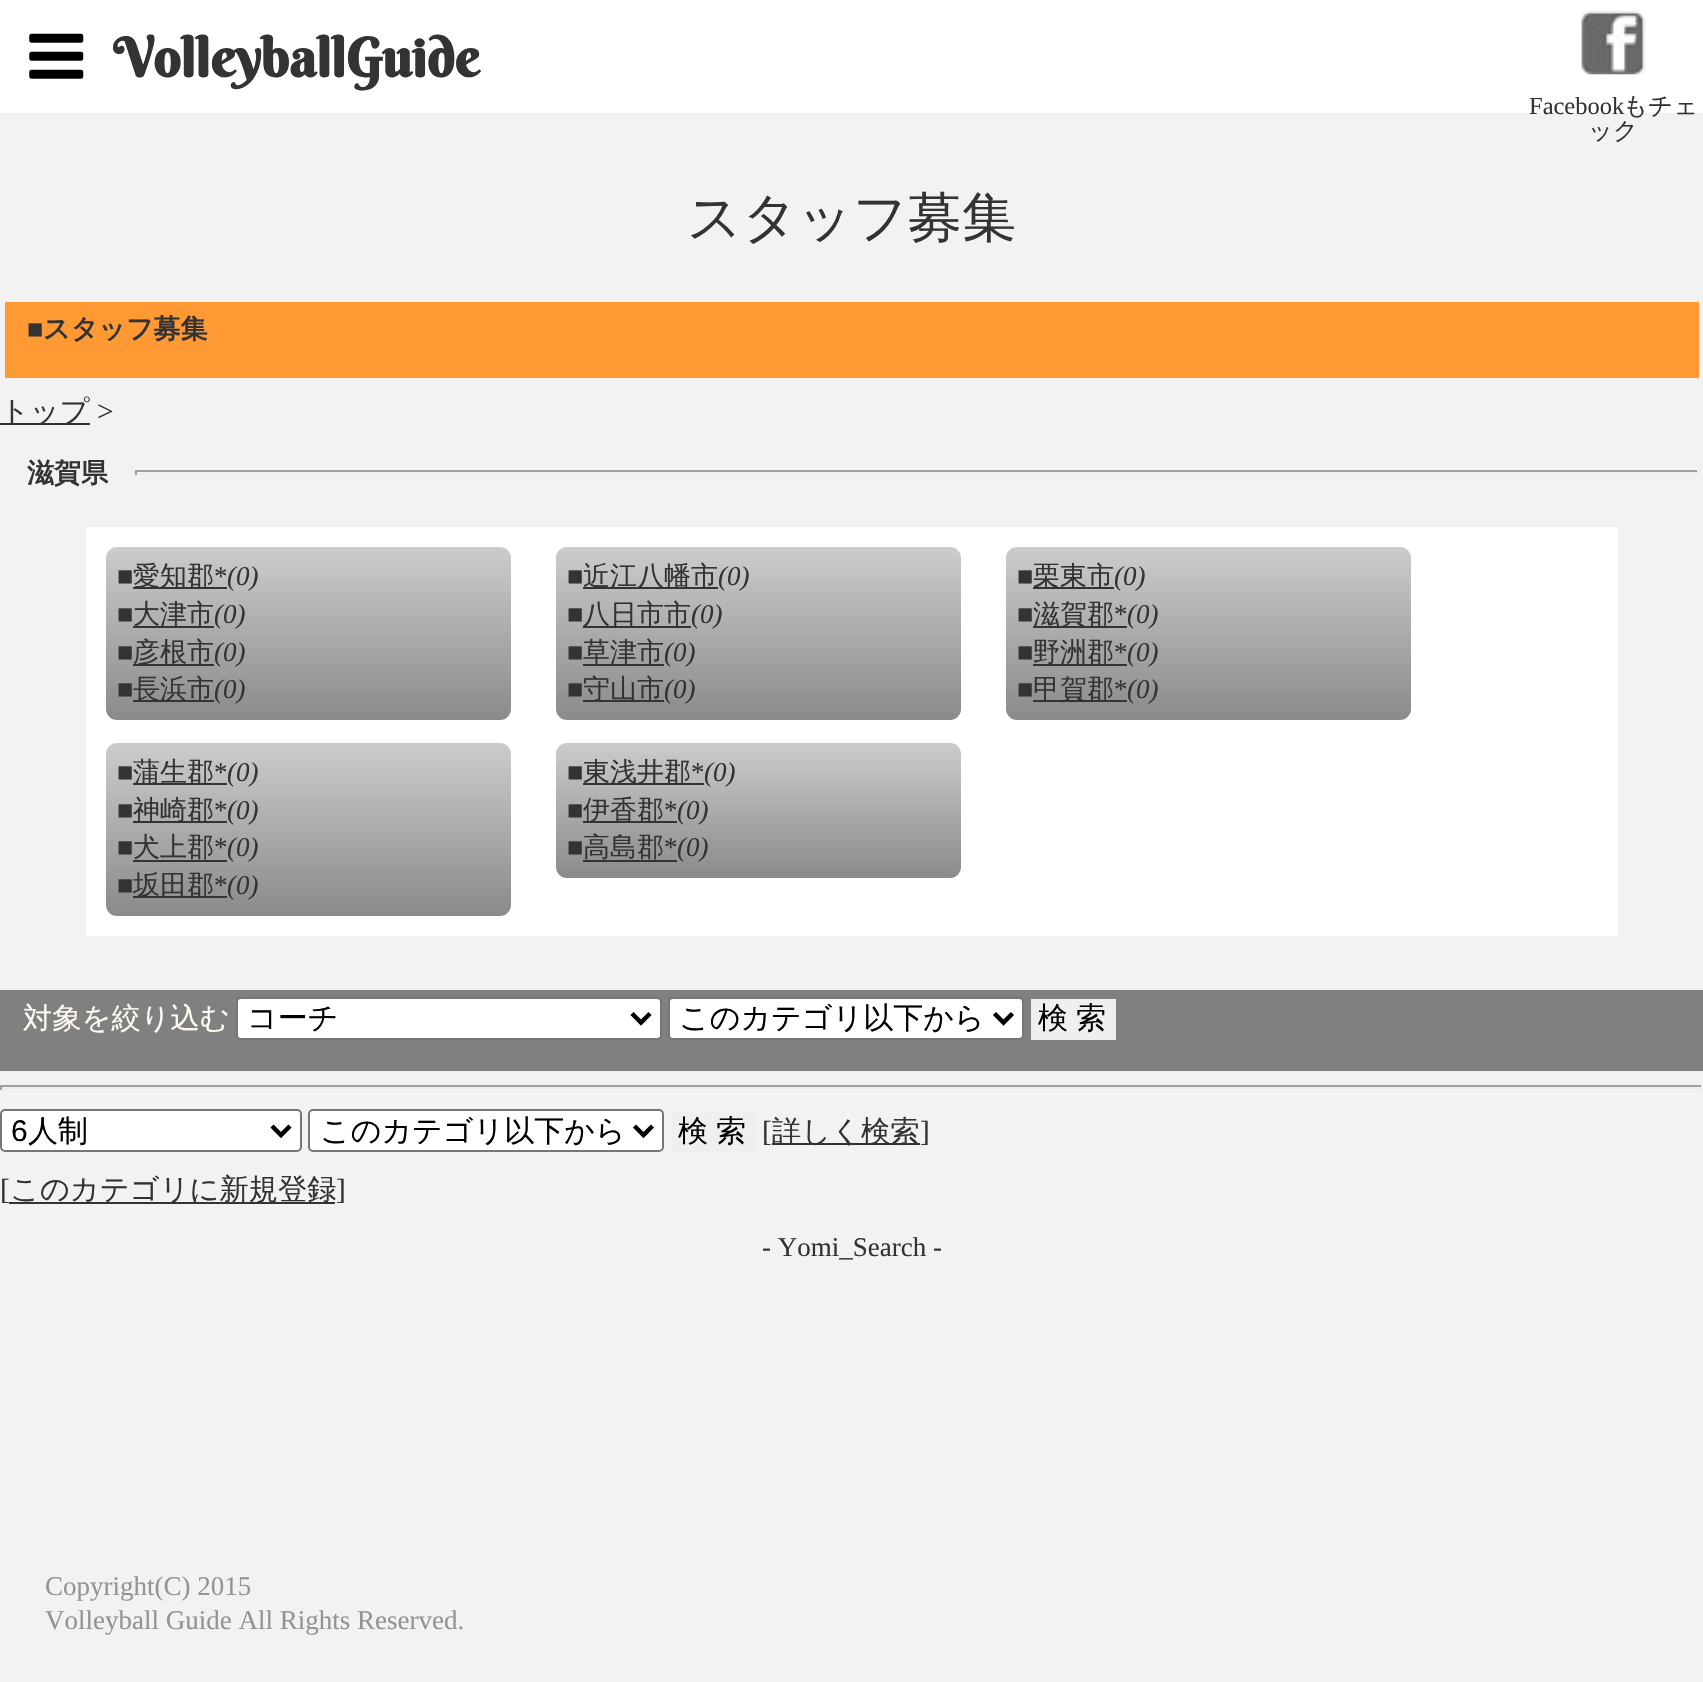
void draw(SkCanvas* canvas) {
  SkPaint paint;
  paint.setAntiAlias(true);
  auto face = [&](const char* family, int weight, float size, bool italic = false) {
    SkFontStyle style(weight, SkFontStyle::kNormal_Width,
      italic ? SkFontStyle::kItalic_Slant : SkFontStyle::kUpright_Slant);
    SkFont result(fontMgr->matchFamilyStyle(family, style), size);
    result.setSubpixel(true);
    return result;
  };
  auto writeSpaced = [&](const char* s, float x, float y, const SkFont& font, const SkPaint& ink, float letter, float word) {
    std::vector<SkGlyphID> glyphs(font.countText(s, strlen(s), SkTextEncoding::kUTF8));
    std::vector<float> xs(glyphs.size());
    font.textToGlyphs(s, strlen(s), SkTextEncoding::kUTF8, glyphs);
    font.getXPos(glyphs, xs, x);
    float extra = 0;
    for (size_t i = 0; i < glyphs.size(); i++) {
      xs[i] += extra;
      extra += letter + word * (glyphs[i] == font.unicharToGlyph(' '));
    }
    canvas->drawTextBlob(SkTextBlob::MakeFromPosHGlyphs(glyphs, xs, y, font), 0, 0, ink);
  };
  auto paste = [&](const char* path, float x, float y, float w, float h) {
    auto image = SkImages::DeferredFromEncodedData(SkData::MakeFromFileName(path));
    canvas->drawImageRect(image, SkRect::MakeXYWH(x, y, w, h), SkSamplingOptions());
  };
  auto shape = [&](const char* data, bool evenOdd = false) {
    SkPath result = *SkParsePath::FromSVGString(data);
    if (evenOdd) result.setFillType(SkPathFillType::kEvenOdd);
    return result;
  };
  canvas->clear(0xfff2f2f2);
  paint.setColor(0xffffffff);
  canvas->drawRect(SkRect::MakeXYWH(0, 0, 1703, 113), paint);
  paste("img/1.png", 29, 33, 55, 46);
  paste("img/2.png", 1581, 11, 65, 64);
  {
    const struct { float x, y, w, h; SkColor color; } items[] = {
      {5, 302, 1694, 76, 0xffff9933},
      {0, 423, 90, 2, 0xff333333},
      {135, 470, 1564, 2, 0xff9f9f9f},
      {1697, 470, 2, 5, 0xffeeeeee},
      {135, 473, 1564, 2, 0xffeeeeee},
      {135, 470, 2, 5, 0xff9f9f9f},
      {86, 527, 1532, 409, 0xffffffff},
    };
    for (auto [x, y, w, h, color] : items) {
      paint.setColor(color);
      canvas->drawRect(SkRect::MakeXYWH(x, y, w, h), paint);
    }
  }
  {
    const SkColor colors[] = {0xffcccccc, 0xff8a8a8a};
    const float stops[] = {0, 1};
    const SkPoint ends[] = {{308, 547}, {308, 720}};
    paint.setShader(SkGradientShader::MakeLinear(ends, colors, stops, 2, SkTileMode::kClamp));
    paint.setAlpha(255);
  }
  canvas->drawRoundRect(SkRect::MakeXYWH(106, 547, 405, 173), 11, 11, paint);
  paint.setShader(nullptr);
  {
    const struct { float x, y, w, h; SkColor color; } items[] = {
      {133, 587, 94, 2, 0xff333333},
      {133, 626, 81, 2, 0xff333333},
      {133, 664, 81, 2, 0xff333333},
      {133, 700, 81, 2, 0xff333333},
    };
    for (auto [x, y, w, h, color] : items) {
      paint.setColor(color);
      canvas->drawRect(SkRect::MakeXYWH(x, y, w, h), paint);
    }
  }
  {
    const SkColor colors[] = {0xffcccccc, 0xff8a8a8a};
    const float stops[] = {0, 1};
    const SkPoint ends[] = {{758, 547}, {758, 720}};
    paint.setShader(SkGradientShader::MakeLinear(ends, colors, stops, 2, SkTileMode::kClamp));
    paint.setAlpha(255);
  }
  canvas->drawRoundRect(SkRect::MakeXYWH(556, 547, 405, 173), 11, 11, paint);
  paint.setShader(nullptr);
  {
    const struct { float x, y, w, h; SkColor color; } items[] = {
      {583, 587, 135, 2, 0xff333333},
      {583, 626, 108, 2, 0xff333333},
      {583, 664, 81, 2, 0xff333333},
      {583, 700, 81, 2, 0xff333333},
    };
    for (auto [x, y, w, h, color] : items) {
      paint.setColor(color);
      canvas->drawRect(SkRect::MakeXYWH(x, y, w, h), paint);
    }
  }
  {
    const SkColor colors[] = {0xffcccccc, 0xff8a8a8a};
    const float stops[] = {0, 1};
    const SkPoint ends[] = {{1208, 547}, {1208, 720}};
    paint.setShader(SkGradientShader::MakeLinear(ends, colors, stops, 2, SkTileMode::kClamp));
    paint.setAlpha(255);
  }
  canvas->drawRoundRect(SkRect::MakeXYWH(1006, 547, 405, 173), 11, 11, paint);
  paint.setShader(nullptr);
  {
    const struct { float x, y, w, h; SkColor color; } items[] = {
      {1033, 587, 81, 2, 0xff333333},
      {1033, 626, 94, 2, 0xff333333},
      {1033, 664, 94, 2, 0xff333333},
      {1033, 700, 94, 2, 0xff333333},
    };
    for (auto [x, y, w, h, color] : items) {
      paint.setColor(color);
      canvas->drawRect(SkRect::MakeXYWH(x, y, w, h), paint);
    }
  }
  {
    const SkColor colors[] = {0xffcccccc, 0xff8a8a8a};
    const float stops[] = {0, 1};
    const SkPoint ends[] = {{308, 743}, {308, 916}};
    paint.setShader(SkGradientShader::MakeLinear(ends, colors, stops, 2, SkTileMode::kClamp));
    paint.setAlpha(255);
  }
  canvas->drawRoundRect(SkRect::MakeXYWH(106, 743, 405, 173), 11, 11, paint);
  paint.setShader(nullptr);
  {
    const struct { float x, y, w, h; SkColor color; } items[] = {
      {133, 783, 94, 2, 0xff333333},
      {133, 821, 94, 2, 0xff333333},
      {133, 860, 94, 2, 0xff333333},
      {133, 896, 94, 2, 0xff333333},
    };
    for (auto [x, y, w, h, color] : items) {
      paint.setColor(color);
      canvas->drawRect(SkRect::MakeXYWH(x, y, w, h), paint);
    }
  }
  {
    const SkColor colors[] = {0xffcccccc, 0xff8a8a8a};
    const float stops[] = {0, 1};
    const SkPoint ends[] = {{758, 743}, {758, 878}};
    paint.setShader(SkGradientShader::MakeLinear(ends, colors, stops, 2, SkTileMode::kClamp));
    paint.setAlpha(255);
  }
  canvas->drawRoundRect(SkRect::MakeXYWH(556, 743, 405, 135), 11, 11, paint);
  paint.setShader(nullptr);
  {
    const struct { float x, y, w, h; SkColor color; } items[] = {
      {583, 783, 121, 2, 0xff333333},
      {583, 821, 94, 2, 0xff333333},
      {583, 860, 94, 2, 0xff333333},
      {0, 990, 1703, 81, 0xff808080},
    };
    for (auto [x, y, w, h, color] : items) {
      paint.setColor(color);
      canvas->drawRect(SkRect::MakeXYWH(x, y, w, h), paint);
    }
  }
  paint.setColor(0xffffffff);
  canvas->drawRoundRect(SkRect::MakeXYWH(237, 998, 424, 41), 4, 4, paint);
  paint.setStroke(true);
  paint.setStrokeWidth(2);
  paint.setColor(0xff767676);
  canvas->drawRoundRect(SkRect::MakeXYWH(237, 998, 424, 41), 4, 4, paint);
  paint.setStrokeWidth(4.5f);
  paint.setColor(0xff000000);
  canvas->drawPath(shape("M632 1013.5L641 1022.5L650 1013.5"), paint);
  paint.setStroke(false);
  paint.setColor(0xffffffff);
  canvas->drawRoundRect(SkRect::MakeXYWH(669, 998, 354, 41), 4, 4, paint);
  paint.setStroke(true);
  paint.setStrokeWidth(2);
  paint.setColor(0xff767676);
  canvas->drawRoundRect(SkRect::MakeXYWH(669, 998, 354, 41), 4, 4, paint);
  paint.setStrokeWidth(4.5f);
  paint.setColor(0xff000000);
  canvas->drawPath(shape("M994.5 1013.5L1003.5 1022.5L1012.5 1013.5"), paint);
  paint.setStroke(false);
  {
    const struct { float x, y, w, h; SkColor color; } items[] = {
      {1031, 999, 85, 41, 0xffefefef},
      {0, 1085, 1703, 2, 0xff9f9f9f},
      {1701, 1085, 2, 5, 0xffeeeeee},
      {0, 1087, 1703, 2, 0xffeeeeee},
      {0, 1085, 2, 5, 0xff9f9f9f},
    };
    for (auto [x, y, w, h, color] : items) {
      paint.setColor(color);
      canvas->drawRect(SkRect::MakeXYWH(x, y, w, h), paint);
    }
  }
  paint.setColor(0xffffffff);
  canvas->drawRoundRect(SkRect::MakeXYWH(1, 1110, 300, 41), 4, 4, paint);
  paint.setStroke(true);
  paint.setStrokeWidth(2);
  paint.setColor(0xff767676);
  canvas->drawRoundRect(SkRect::MakeXYWH(1, 1110, 300, 41), 4, 4, paint);
  paint.setStrokeWidth(4.5f);
  paint.setColor(0xff000000);
  canvas->drawPath(shape("M272 1126L281 1135L290 1126"), paint);
  paint.setStroke(false);
  paint.setColor(0xffffffff);
  canvas->drawRoundRect(SkRect::MakeXYWH(309, 1110, 354, 41), 4, 4, paint);
  paint.setStroke(true);
  paint.setStrokeWidth(2);
  paint.setColor(0xff767676);
  canvas->drawRoundRect(SkRect::MakeXYWH(309, 1110, 354, 41), 4, 4, paint);
  paint.setStrokeWidth(4.5f);
  paint.setColor(0xff000000);
  canvas->drawPath(shape("M634.5 1126L643.5 1135L652.5 1126"), paint);
  paint.setStroke(false);
  {
    const struct { float x, y, w, h; SkColor color; } items[] = {
      {671, 1112, 85, 40, 0xffefefef},
      {772, 1143, 148, 2, 0xff333333},
      {9, 1202, 326, 2, 0xff333333},
    };
    for (auto [x, y, w, h, color] : items) {
      paint.setColor(color);
      canvas->drawRect(SkRect::MakeXYWH(x, y, w, h), paint);
    }
  }
  auto f0 = face("Berkshire Swash", 700, 54);
  canvas->drawString("VolleyballGuide", 113, 77, f0, paint);
  auto f1 = face("Liberation Serif", 400, 24.5f);
  canvas->drawString("Facebook", 1529, 114, f1, paint);
  auto f2 = face("WenQuanYi Zen Hei", 500, 24.5f);
  canvas->drawString("もチェ", 1623, 114, f2, paint);
  canvas->drawString("ック", 1588, 139, f2, paint);
  auto f3 = face("WenQuanYi Zen Hei", 500, 54);
  canvas->drawString("スタッフ募集", 687, 236, f3, paint);
  auto f4 = face("Liberation Serif", 700, 27);
  canvas->drawString("■", 27, 338, f4, paint);
  auto f5 = face("WenQuanYi Zen Hei", 700, 27);
  canvas->drawString("スタッフ募集", 43, 338, f5, paint);
  auto f6 = face("WenQuanYi Zen Hei", 500, 29.25f);
  canvas->drawString("トップ", 0, 421, f6, paint);
  auto f7 = face("Liberation Serif", 400, 29.25f);
  canvas->drawString(">", 97, 421, f7, paint);
  canvas->drawString("滋賀県", 27, 482, f5, paint);
  auto f8 = face("Liberation Serif", 400, 27);
  canvas->drawString("■", 117, 585, f8, paint);
  auto f9 = face("WenQuanYi Zen Hei", 500, 27);
  canvas->drawString("愛知郡", 133, 585, f9, paint);
  canvas->drawString("*", 214, 585, f8, paint);
  auto f10 = face("Liberation Serif", 400, 27, true);
  canvas->drawString("(0)", 227, 585, f10, paint);
  canvas->drawString("■", 117, 623, f8, paint);
  canvas->drawString("大津市", 133, 623, f9, paint);
  canvas->drawString("(0)", 214, 623, f10, paint);
  canvas->drawString("■", 117, 661, f8, paint);
  canvas->drawString("彦根市", 133, 661, f9, paint);
  canvas->drawString("(0)", 214, 661, f10, paint);
  canvas->drawString("■", 117, 698, f8, paint);
  canvas->drawString("長浜市", 133, 698, f9, paint);
  canvas->drawString("(0)", 214, 698, f10, paint);
  canvas->drawString("■", 567, 585, f8, paint);
  canvas->drawString("近江八幡市", 583, 585, f9, paint);
  canvas->drawString("(0)", 718, 585, f10, paint);
  canvas->drawString("■", 567, 623, f8, paint);
  canvas->drawString("八日市市", 583, 623, f9, paint);
  canvas->drawString("(0)", 691, 623, f10, paint);
  canvas->drawString("■", 567, 661, f8, paint);
  canvas->drawString("草津市", 583, 661, f9, paint);
  canvas->drawString("(0)", 664, 661, f10, paint);
  canvas->drawString("■", 567, 698, f8, paint);
  canvas->drawString("守山市", 583, 698, f9, paint);
  canvas->drawString("(0)", 664, 698, f10, paint);
  canvas->drawString("■", 1017, 585, f8, paint);
  canvas->drawString("栗東市", 1033, 585, f9, paint);
  canvas->drawString("(0)", 1114, 585, f10, paint);
  canvas->drawString("■", 1017, 623, f8, paint);
  canvas->drawString("滋賀郡", 1033, 623, f9, paint);
  canvas->drawString("*", 1114, 623, f8, paint);
  canvas->drawString("(0)", 1127, 623, f10, paint);
  canvas->drawString("■", 1017, 661, f8, paint);
  canvas->drawString("野洲郡", 1033, 661, f9, paint);
  canvas->drawString("*", 1114, 661, f8, paint);
  canvas->drawString("(0)", 1127, 661, f10, paint);
  canvas->drawString("■", 1017, 698, f8, paint);
  canvas->drawString("甲賀郡", 1033, 698, f9, paint);
  canvas->drawString("*", 1114, 698, f8, paint);
  canvas->drawString("(0)", 1127, 698, f10, paint);
  canvas->drawString("■", 117, 781, f8, paint);
  canvas->drawString("蒲生郡", 133, 781, f9, paint);
  canvas->drawString("*", 214, 781, f8, paint);
  canvas->drawString("(0)", 227, 781, f10, paint);
  canvas->drawString("■", 117, 819, f8, paint);
  canvas->drawString("神崎郡", 133, 819, f9, paint);
  canvas->drawString("*", 214, 819, f8, paint);
  canvas->drawString("(0)", 227, 819, f10, paint);
  canvas->drawString("■", 117, 856, f8, paint);
  canvas->drawString("犬上郡", 133, 856, f9, paint);
  canvas->drawString("*", 214, 856, f8, paint);
  canvas->drawString("(0)", 227, 856, f10, paint);
  canvas->drawString("■", 117, 894, f8, paint);
  canvas->drawString("坂田郡", 133, 894, f9, paint);
  canvas->drawString("*", 214, 894, f8, paint);
  canvas->drawString("(0)", 227, 894, f10, paint);
  canvas->drawString("■", 567, 781, f8, paint);
  canvas->drawString("東浅井郡", 583, 781, f9, paint);
  canvas->drawString("*", 691, 781, f8, paint);
  canvas->drawString("(0)", 704, 781, f10, paint);
  canvas->drawString("■", 567, 819, f8, paint);
  canvas->drawString("伊香郡", 583, 819, f9, paint);
  canvas->drawString("*", 664, 819, f8, paint);
  canvas->drawString("(0)", 677, 819, f10, paint);
  canvas->drawString("■", 567, 856, f8, paint);
  canvas->drawString("高島郡", 583, 856, f9, paint);
  canvas->drawString("*", 664, 856, f8, paint);
  canvas->drawString("(0)", 677, 856, f10, paint);
  paint.setColor(0xfffffbf0);
  canvas->drawString("対象を絞り込む", 23, 1028, f6, paint);
  auto f11 = face("WenQuanYi Zen Hei", 500, 30);
  paint.setColor(0xff000000);
  canvas->drawString("コーチ", 247, 1028, f11, paint);
  canvas->drawString("このカテゴリ以下から", 679, 1028, f11, paint);
  writeSpaced("検 索", 1038, 1028, f11, paint, 0, -1);
  auto f12 = face("Liberation Sans", 400, 30);
  canvas->drawString("6", 11, 1141, f12, paint);
  canvas->drawString("人制", 28, 1141, f11, paint);
  canvas->drawString("このカテゴリ以下から", 320, 1141, f11, paint);
  writeSpaced("検 索", 678, 1141, f11, paint, 0, -1);
  paint.setColor(0xff333333);
  canvas->drawString("[", 762, 1141, f7, paint);
  canvas->drawString("詳しく検索", 772, 1141, f6, paint);
  canvas->drawString("]", 920, 1141, f7, paint);
  canvas->drawString("[", 0, 1199, f7, paint);
  canvas->drawString("このカテゴリに新規登録", 10, 1199, f6, paint);
  canvas->drawString("]", 336, 1199, f7, paint);
  canvas->drawString("- Yomi_Search -", 762, 1256, f8, paint);
  paint.setColor(0xff939393);
  canvas->drawString("Copyright(C) 2015", 45, 1595, f8, paint);
  canvas->drawString("Volleyball Guide All Rights Reserved.", 45, 1629, f8, paint);
}
